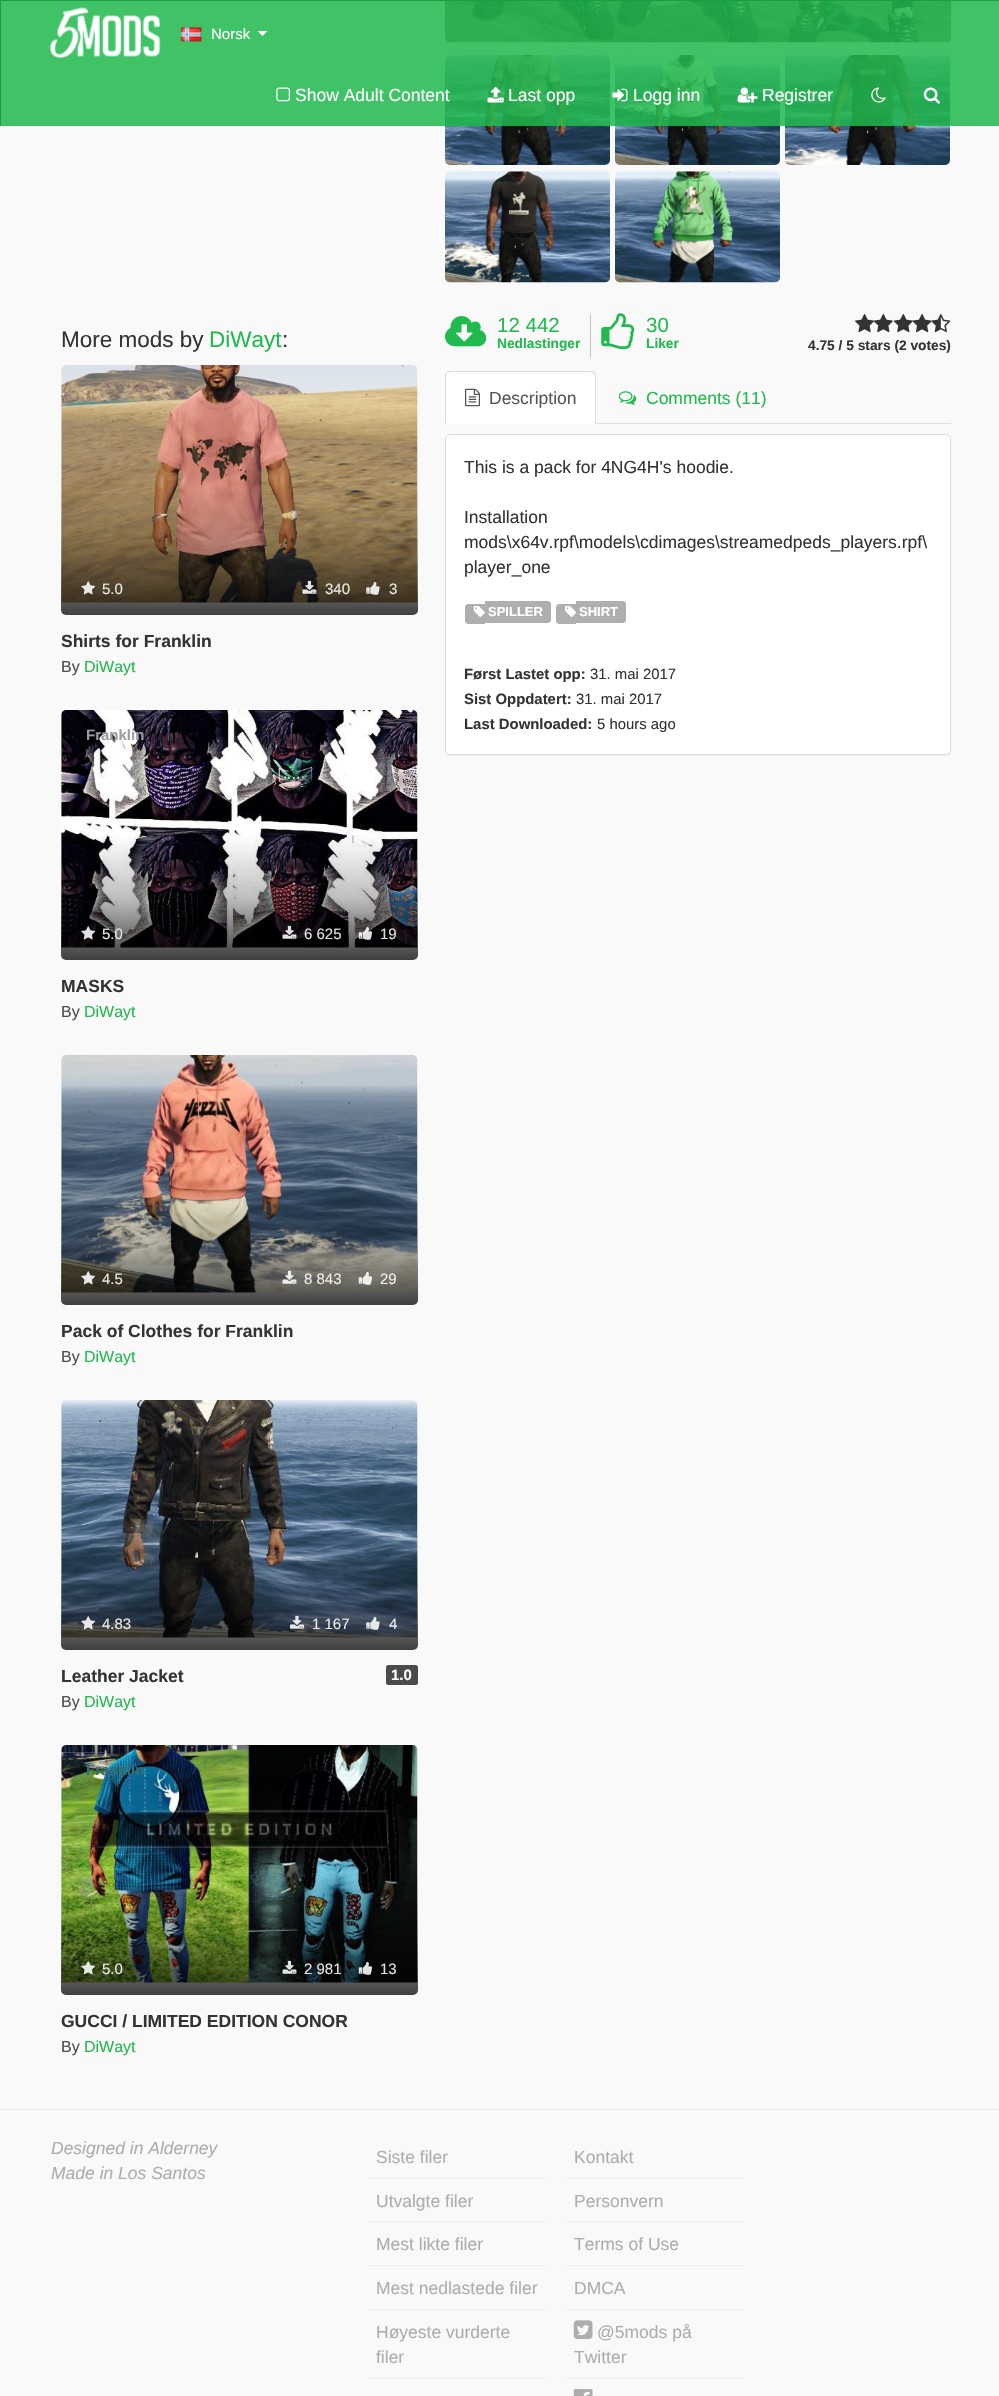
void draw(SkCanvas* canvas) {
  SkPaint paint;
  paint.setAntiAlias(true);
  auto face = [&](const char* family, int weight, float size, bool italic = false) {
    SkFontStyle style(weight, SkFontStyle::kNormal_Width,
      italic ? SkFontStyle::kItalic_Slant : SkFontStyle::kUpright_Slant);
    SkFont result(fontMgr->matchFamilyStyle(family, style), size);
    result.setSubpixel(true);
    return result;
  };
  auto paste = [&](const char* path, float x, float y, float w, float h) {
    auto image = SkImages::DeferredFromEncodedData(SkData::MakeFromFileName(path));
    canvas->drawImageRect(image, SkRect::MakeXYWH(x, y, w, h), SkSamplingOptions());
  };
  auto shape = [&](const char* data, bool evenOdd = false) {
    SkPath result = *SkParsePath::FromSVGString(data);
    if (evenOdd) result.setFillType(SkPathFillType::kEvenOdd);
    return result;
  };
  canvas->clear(0xfff9f9f9);
  paste("img/29.png", 445, 1, 507, 42);
  paste("img/30.png", 445, 55, 165, 110);
  paste("img/31.png", 615, 55, 165, 110);
  paste("img/32.png", 785, 55, 165, 110);
  {
    const struct { float x, y, w, h; SkColor color; } items[] = {
      {1, 1, 998, 125, 0xd920ba4e},
      {0, 0, 999, 1, 0xff1b9e42},
      {0, 0, 1, 126, 0xff1b9e42},
    };
    for (auto [x, y, w, h, color] : items) {
      paint.setColor(color);
      canvas->drawRect(SkRect::MakeXYWH(x, y, w, h), paint);
    }
  }
  paste("img/1.png", 49, 7, 112, 51);
  paste("img/2.png", 180, 27, 22, 15);
  paint.setColor(0xffffffff);
  canvas->drawPath(shape("M257.5 31H267.5L262.5 36Z"), paint);
  paste("img/3.png", 276, 87, 14, 15);
  paste("img/4.png", 487, 86, 17, 17);
  paste("img/5.png", 612, 88, 16, 14);
  paste("img/6.png", 737, 87, 21, 16);
  paste("img/7.png", 871, 87, 15, 16);
  paste("img/8.png", 923, 87, 17, 17);
  paste("img/9.png", 61, 365, 357, 238);
  {
    const SkColor colors[] = {0x00000000, 0x40000000, 0xbf000000};
    const float stops[] = {0.5f, 0.75f, 1};
    const SkPoint ends[] = {{239, 365}, {239, 615}};
    paint.setShader(SkGradientShader::MakeLinear(ends, colors, stops, 3, SkTileMode::kClamp));
    paint.setAlpha(255);
  }
  canvas->drawRoundRect(SkRect::MakeXYWH(61, 365, 357, 250), 5, 5, paint);
  paste("img/10.png", 81, 581, 15, 14);
  paste("img/11.png", 302, 580, 15, 14);
  paste("img/12.png", 366, 582, 14, 13);
  paste("img/13.png", 61, 710, 357, 238);
  {
    const SkColor colors[] = {0x00000000, 0x40000000, 0xbf000000};
    const float stops[] = {0.5f, 0.75f, 1};
    const SkPoint ends[] = {{239, 710}, {239, 960}};
    paint.setShader(SkGradientShader::MakeLinear(ends, colors, stops, 3, SkTileMode::kClamp));
    paint.setAlpha(255);
  }
  canvas->drawRoundRect(SkRect::MakeXYWH(61, 710, 357, 250), 5, 5, paint);
  paste("img/14.png", 81, 926, 15, 14);
  paste("img/15.png", 282, 925, 15, 14);
  paste("img/16.png", 358, 927, 15, 13);
  paste("img/17.png", 61, 1055, 357, 238);
  {
    const SkColor colors[] = {0x00000000, 0x40000000, 0xbf000000};
    const float stops[] = {0.5f, 0.75f, 1};
    const SkPoint ends[] = {{239, 1055}, {239, 1305}};
    paint.setShader(SkGradientShader::MakeLinear(ends, colors, stops, 3, SkTileMode::kClamp));
    paint.setAlpha(255);
  }
  canvas->drawRoundRect(SkRect::MakeXYWH(61, 1055, 357, 250), 5, 5, paint);
  paste("img/18.png", 81, 1271, 15, 14);
  paste("img/19.png", 282, 1270, 15, 14);
  paste("img/20.png", 358, 1272, 15, 13);
  paste("img/21.png", 61, 1400, 357, 238);
  {
    const SkColor colors[] = {0x00000000, 0x40000000, 0xbf000000};
    const float stops[] = {0.5f, 0.75f, 1};
    const SkPoint ends[] = {{239, 1400}, {239, 1650}};
    paint.setShader(SkGradientShader::MakeLinear(ends, colors, stops, 3, SkTileMode::kClamp));
    paint.setAlpha(255);
  }
  canvas->drawRoundRect(SkRect::MakeXYWH(61, 1400, 357, 250), 5, 5, paint);
  paste("img/22.png", 81, 1616, 15, 14);
  paste("img/23.png", 290, 1615, 14, 14);
  paste("img/24.png", 366, 1617, 14, 13);
  paint.setShader(nullptr);
  paint.setColor(0xff4b4b4b);
  canvas->drawRoundRect(SkRect::MakeXYWH(386, 1665, 32, 20), 2.5f, 2.5f, paint);
  paste("img/25.png", 61, 1745, 357, 238);
  {
    const SkColor colors[] = {0x00000000, 0x40000000, 0xbf000000};
    const float stops[] = {0.5f, 0.75f, 1};
    const SkPoint ends[] = {{239, 1745}, {239, 1995}};
    paint.setShader(SkGradientShader::MakeLinear(ends, colors, stops, 3, SkTileMode::kClamp));
    paint.setAlpha(255);
  }
  canvas->drawRoundRect(SkRect::MakeXYWH(61, 1745, 357, 250), 5, 5, paint);
  paste("img/26.png", 81, 1961, 15, 14);
  paste("img/27.png", 282, 1960, 15, 14);
  paste("img/28.png", 358, 1962, 15, 13);
  paste("img/33.png", 445, 171, 165, 112);
  paste("img/34.png", 615, 171, 165, 112);
  paste("img/35.png", 445, 316, 42, 31);
  paint.setShader(nullptr);
  paint.setColor(0xffc2c2c2);
  canvas->drawRect(SkRect::MakeXYWH(590, 314, 1, 44), paint);
  paste("img/36.png", 601, 313, 34, 36);
  paste("img/37.png", 855, 314, 20, 19);
  paste("img/38.png", 873, 314, 20, 19);
  paste("img/39.png", 893, 314, 20, 19);
  paste("img/40.png", 912, 314, 20, 19);
  paste("img/41.png", 931, 314, 20, 19);
  paint.setColor(0xffdddddd);
  canvas->drawRect(SkRect::MakeXYWH(596, 423, 355, 1), paint);
  paint.setColor(0xffffffff);
  canvas->drawPath(shape("M450 371H591C594 371 596 373 596 376V424H445V376C445 373 447 371 450 371Z"), paint);
  paint.setColor(0xffdddddd);
  canvas->drawPath(shape("M450 372L447 373H446L448 371H593L595 373L594 374C593 373 592 372 591 372Z"), paint);
  canvas->drawPath(shape("M595 373C596 373 596 375 596 376V424L594 422H595V376L594 374Z"), paint);
  canvas->drawPath(shape("M445 424L447 422H446V376C446 375 446 374 447 373H446C445 373 445 375 445 376Z"), paint);
  paste("img/42.png", 465, 388, 15, 19);
  paste("img/43.png", 618, 391, 19, 14);
  paint.setColor(0x0d000000);
  paint.setMaskFilter(SkMaskFilter::MakeBlur(kNormal_SkBlurStyle, 0.5f));
  canvas->drawRoundRect(SkRect::MakeXYWH(445, 435, 506, 321), 5, 5, paint);
  paint.setMaskFilter(nullptr);
  paint.setColor(0xffffffff);
  canvas->drawRoundRect(SkRect::MakeXYWH(445.5f, 434.5f, 505, 320), 4.5f, 4.5f, paint);
  paint.setStroke(true);
  paint.setStrokeWidth(1);
  paint.setColor(0xffdddddd);
  canvas->drawRoundRect(SkRect::MakeXYWH(445.5f, 434.5f, 505, 320), 4.5f, 4.5f, paint);
  paint.setStroke(false);
  paint.setColor(0xffafafaf);
  canvas->drawPath(shape("M468 604H485V624H468C466.5 624 465 622.5 465 621V607C465 605.5 466.5 604 468 604Z"), paint);
  canvas->drawPath(shape("M485 601H548C549.5 601 551 602.5 551 604V620C551 621.5 549.5 623 548 623H485Z"), paint);
  paste("img/44.png", 473, 605, 12, 12);
  canvas->drawPath(shape("M559 604H576V624H559C557.5 624 556 622.5 556 621V607C556 605.5 557.5 604 559 604Z"), paint);
  canvas->drawPath(shape("M576 601H623C624.5 601 626 602.5 626 604V620C626 621.5 624.5 623 623 623H576Z"), paint);
  paste("img/45.png", 565, 605, 11, 12);
  {
    const struct { float x, y, w, h; SkColor color; } items[] = {
      {0, 2109, 999, 1, 0xffe7e7e7},
      {368, 2178, 178, 1, 0xffeeeeee},
      {368, 2221, 178, 1, 0xffeeeeee},
      {368, 2265, 178, 1, 0xffeeeeee},
      {368, 2309, 178, 1, 0xffeeeeee},
      {368, 2378, 178, 1, 0xffeeeeee},
      {565, 2178, 179, 1, 0xffeeeeee},
      {565, 2221, 179, 1, 0xffeeeeee},
      {565, 2265, 179, 1, 0xffeeeeee},
      {565, 2309, 179, 1, 0xffeeeeee},
      {565, 2378, 179, 1, 0xffeeeeee},
    };
    for (auto [x, y, w, h, color] : items) {
      paint.setColor(color);
      canvas->drawRect(SkRect::MakeXYWH(x, y, w, h), paint);
    }
  }
  paste("img/46.png", 573, 2320, 20, 20);
  paste("img/47.png", 573, 2389, 20, 7);
  auto f0 = face("Liberation Sans", 400, 15);
  paint.setColor(0xffffffff);
  canvas->drawString("Norsk", 211, 39, f0, paint);
  auto f1 = face("Liberation Sans", 400, 17.5f);
  {
    const struct { const char* s; float x, y; } items[] = {
      {"Show Adult Content", 295, 101},
      {"Last opp", 508, 101},
      {"Logg inn", 633, 101},
      {"Registrer", 762, 101},
    };
    for (auto [s, x, y] : items) {
      canvas->drawString(s, x, y, f1, paint);
    }
  }
  auto f2 = face("Liberation Sans", 400, 22.5f);
  paint.setColor(0xff333333);
  canvas->drawString("More mods by", 61, 347, f2, paint);
  paint.setColor(0xff20ba4e);
  canvas->drawString("DiWayt", 209, 347, f2, paint);
  paint.setColor(0xff333333);
  canvas->drawString(":", 282, 347, f2, paint);
  paint.setColor(0xffeae8e5);
  {
    const struct { const char* s; float x, y; } items[] = {
      {"5.0", 102, 594},
      {"340", 325, 594},
      {"3", 389, 594},
    };
    for (auto [s, x, y] : items) {
      canvas->drawString(s, x, y, f0, paint);
    }
  }
  auto f3 = face("Liberation Sans", 700, 17.5f);
  paint.setColor(0xff333333);
  canvas->drawString("Shirts for Franklin", 61, 647, f3, paint);
  auto f4 = face("Liberation Sans", 400, 16);
  paint.setColor(0xff4b4b4b);
  canvas->drawString("By", 61, 672, f4, paint);
  paint.setColor(0xff20ba4e);
  canvas->drawString("DiWayt", 84, 672, f4, paint);
  auto f5 = face("Liberation Sans", 700, 15);
  paint.setColor(0xff9d9ca0);
  canvas->drawString("Franklin", 86, 740, f5, paint);
  paint.setColor(0xffeae8e5);
  canvas->drawString("5.0", 102, 939, f0, paint);
  paint.setColor(0xffe1e1e1);
  canvas->drawString("6 625", 304, 939, f0, paint);
  canvas->drawString("19", 380, 939, f0, paint);
  paint.setColor(0xff333333);
  canvas->drawString("MASKS", 61, 992, f3, paint);
  paint.setColor(0xff4b4b4b);
  canvas->drawString("By", 61, 1017, f4, paint);
  paint.setColor(0xff20ba4e);
  canvas->drawString("DiWayt", 84, 1017, f4, paint);
  paint.setColor(0xffeae8e5);
  canvas->drawString("4.5", 102, 1284, f0, paint);
  paint.setColor(0xffededec);
  canvas->drawString("8 843", 304, 1284, f0, paint);
  canvas->drawString("29", 380, 1284, f0, paint);
  paint.setColor(0xff333333);
  canvas->drawString("Pack of Clothes for Franklin", 61, 1337, f3, paint);
  paint.setColor(0xff4b4b4b);
  canvas->drawString("By", 61, 1362, f4, paint);
  paint.setColor(0xff20ba4e);
  canvas->drawString("DiWayt", 84, 1362, f4, paint);
  paint.setColor(0xffeae8e5);
  canvas->drawString("4.83", 102, 1629, f0, paint);
  canvas->drawString("1 167", 312, 1629, f0, paint);
  paint.setColor(0xffededec);
  canvas->drawString("4", 389, 1629, f0, paint);
  paint.setColor(0xff333333);
  canvas->drawString("Leather Jacket", 61, 1682, f3, paint);
  paint.setColor(0xfff9f9f9);
  canvas->drawString("1.0", 391, 1680, f5, paint);
  paint.setColor(0xff4b4b4b);
  canvas->drawString("By", 61, 1707, f4, paint);
  paint.setColor(0xff20ba4e);
  canvas->drawString("DiWayt", 84, 1707, f4, paint);
  paint.setColor(0xff356d75);
  canvas->drawString("Franklin", 86, 1775, f5, paint);
  paint.setColor(0xffeae8e5);
  canvas->drawString("5.0", 102, 1974, f0, paint);
  paint.setColor(0xffe1e1e1);
  canvas->drawString("2 981", 304, 1974, f0, paint);
  canvas->drawString("13", 380, 1974, f0, paint);
  paint.setColor(0xff333333);
  canvas->drawString("GUCCI / LIMITED EDITION CONOR", 61, 2027, f3, paint);
  paint.setColor(0xff4b4b4b);
  canvas->drawString("By", 61, 2052, f4, paint);
  paint.setColor(0xff20ba4e);
  canvas->drawString("DiWayt", 84, 2052, f4, paint);
  auto f6 = face("Liberation Sans", 400, 20.5f);
  canvas->drawString("12 442", 497, 332, f6, paint);
  auto f7 = face("Liberation Sans", 700, 13.75f);
  canvas->drawString("Nedlastinger", 497, 348, f7, paint);
  canvas->drawString("30", 646, 332, f6, paint);
  canvas->drawString("Liker", 646, 348, f7, paint);
  paint.setColor(0xff333333);
  canvas->drawString("4.75 / 5 stars (2 votes)", 808, 350, f7, paint);
  paint.setColor(0xff555555);
  canvas->drawString("Description", 489, 404, f1, paint);
  paint.setColor(0xff20ba4e);
  canvas->drawString("Comments (11)", 646, 404, f1, paint);
  paint.setColor(0xff333333);
  {
    const struct { const char* s; float x, y; } items[] = {
      {"This is a pack for 4NG4H's hoodie.", 464, 473},
      {"Installation", 464, 523},
      {"mods\\x64v.rpf\\models\\cdimages\\streamedpeds_players.rpf\\", 464, 548},
      {"player_one", 464, 573},
    };
    for (auto [s, x, y] : items) {
      canvas->drawString(s, x, y, f1, paint);
    }
  }
  auto f8 = face("Liberation Sans", 700, 13);
  paint.setColor(0xffffffff);
  canvas->drawString("SPILLER", 488, 616, f8, paint);
  canvas->drawString("SHIRT", 579, 616, f8, paint);
  auto f9 = face("Liberation Sans", 700, 14.9f);
  paint.setColor(0xff333333);
  canvas->drawString("Først Lastet opp:", 464, 679, f9, paint);
  auto f10 = face("Liberation Sans", 400, 14.9f);
  canvas->drawString("31. mai 2017", 590, 679, f10, paint);
  canvas->drawString("Sist Oppdatert:", 464, 704, f9, paint);
  canvas->drawString("31. mai 2017", 576, 704, f10, paint);
  canvas->drawString("Last Downloaded:", 464, 729, f9, paint);
  canvas->drawString("5 hours ago", 597, 729, f10, paint);
  auto f11 = face("Liberation Sans", 400, 17.5f, true);
  paint.setColor(0xffadadad);
  canvas->drawString("Designed in Alderney", 51, 2154, f11, paint);
  canvas->drawString("Made in Los Santos", 51, 2179, f11, paint);
  {
    const struct { const char* s; float x, y; } items[] = {
      {"Siste filer", 376, 2163},
      {"Utvalgte filer", 376, 2207},
      {"Mest likte filer", 376, 2250},
      {"Mest nedlastede filer", 376, 2294},
      {"Høyeste vurderte", 376, 2338},
      {"filer", 376, 2363},
      {"Kontakt", 574, 2163},
      {"Personvern", 574, 2207},
      {"Terms of Use", 574, 2250},
      {"DMCA", 574, 2294},
      {"@5mods på", 597, 2338},
      {"Twitter", 574, 2363},
    };
    for (auto [s, x, y] : items) {
      canvas->drawString(s, x, y, f1, paint);
    }
  }
}
